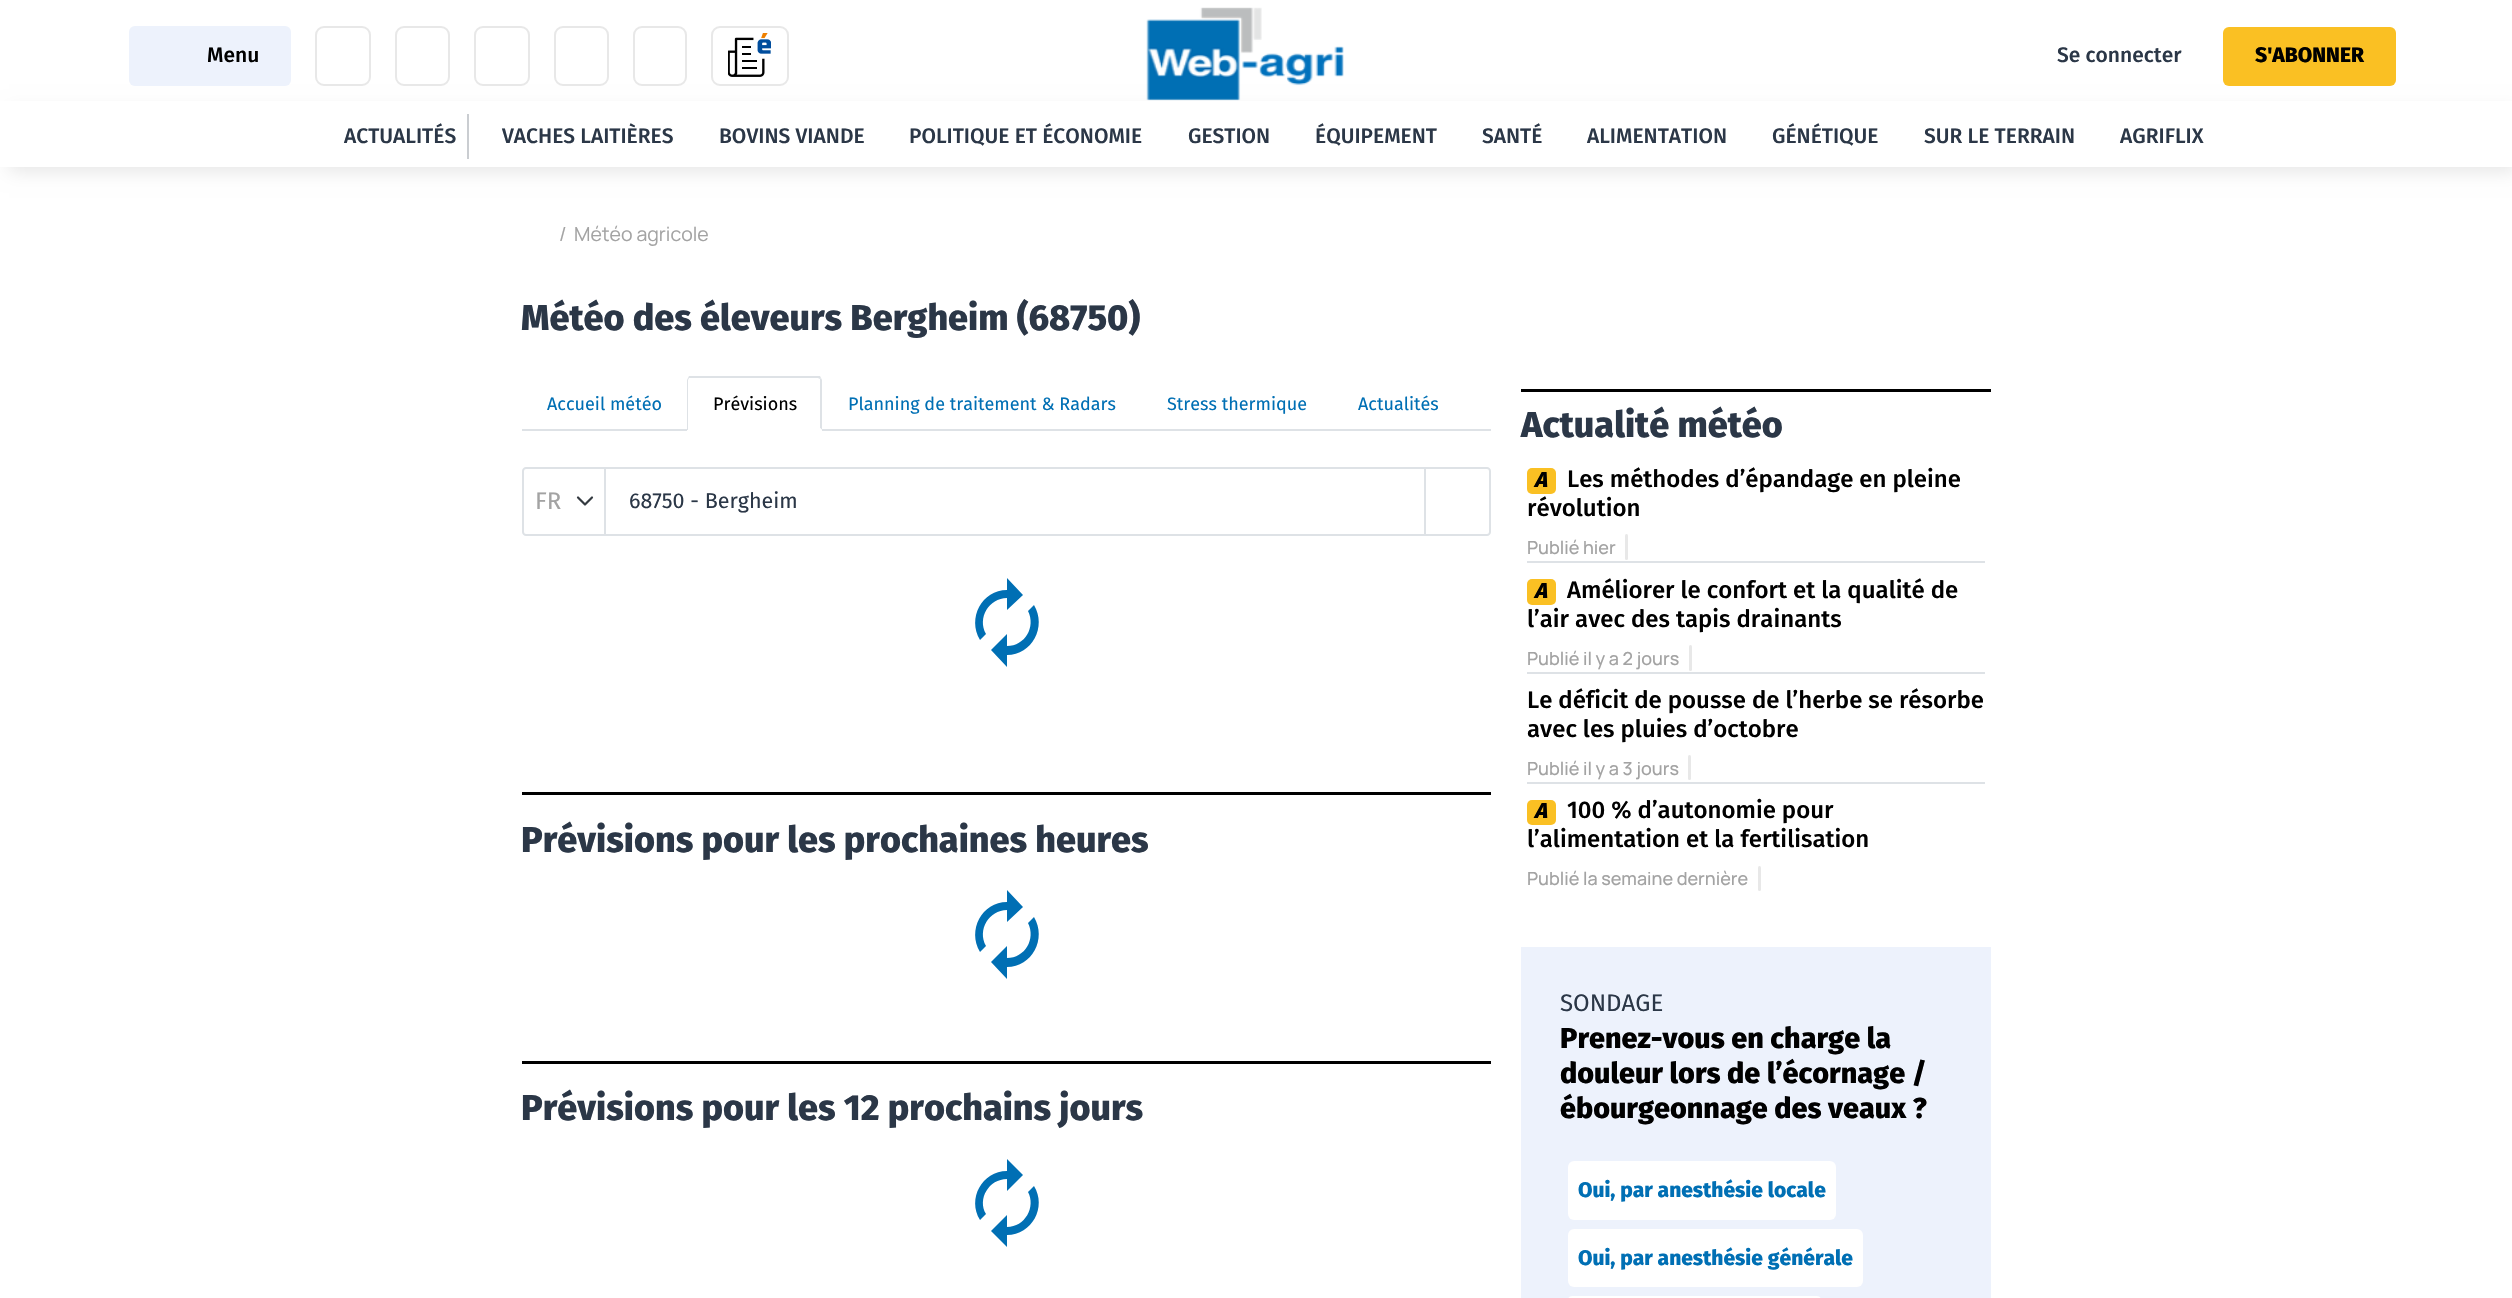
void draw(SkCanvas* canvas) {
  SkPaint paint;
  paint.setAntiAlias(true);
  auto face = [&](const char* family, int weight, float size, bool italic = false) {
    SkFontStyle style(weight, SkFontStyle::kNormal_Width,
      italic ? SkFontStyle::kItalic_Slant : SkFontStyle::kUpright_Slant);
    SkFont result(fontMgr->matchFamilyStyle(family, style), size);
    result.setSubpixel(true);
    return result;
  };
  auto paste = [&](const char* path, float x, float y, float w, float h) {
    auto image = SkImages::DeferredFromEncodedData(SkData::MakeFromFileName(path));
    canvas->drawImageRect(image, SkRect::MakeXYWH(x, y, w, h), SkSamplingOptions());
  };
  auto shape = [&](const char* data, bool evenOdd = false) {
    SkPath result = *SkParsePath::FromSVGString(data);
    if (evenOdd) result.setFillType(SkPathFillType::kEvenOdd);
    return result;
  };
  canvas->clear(0xffffffff);
  paint.setColor(0x1a000000);
  paint.setMaskFilter(SkMaskFilter::MakeBlur(kNormal_SkBlurStyle, 9));
  canvas->drawRect(SkRect::MakeXYWH(9, 111, 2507, 60), paint);
  paint.setMaskFilter(nullptr);
  paint.setColor(0xffedf2fc);
  canvas->drawRoundRect(SkRect::MakeXYWH(129, 26, 162, 60), 6, 6, paint);
  paint.setStroke(true);
  paint.setStrokeWidth(2);
  paint.setColor(0xffe8e8e8);
  canvas->drawRoundRect(SkRect::MakeXYWH(316, 27, 54, 58), 8, 8, paint);
  canvas->drawRoundRect(SkRect::MakeXYWH(396, 27, 53, 58), 8, 8, paint);
  canvas->drawRoundRect(SkRect::MakeXYWH(475, 27, 54, 58), 8, 8, paint);
  canvas->drawRoundRect(SkRect::MakeXYWH(555, 27, 53, 58), 8, 8, paint);
  canvas->drawRoundRect(SkRect::MakeXYWH(634, 27, 52, 58), 8, 8, paint);
  canvas->drawRoundRect(SkRect::MakeXYWH(712, 27, 76, 58), 8, 8, paint);
  paste("img/1.png", 728, 33, 43, 44);
  paste("img/2.png", 1146, 7, 198, 94);
  paint.setStroke(false);
  paint.setColor(0xfffac023);
  canvas->drawRoundRect(SkRect::MakeXYWH(2223, 27, 173, 59), 6, 6, paint);
  {
    const struct { float x, y, w, h; SkColor color; } items[] = {
      {0, 101, 2512, 66, 0xffffffff},
      {467, 114, 2, 45, 0xffcacdd1},
      {522, 429, 969, 2, 0xffdee2e6},
    };
    for (auto [x, y, w, h, color] : items) {
      paint.setColor(color);
      canvas->drawRect(SkRect::MakeXYWH(x, y, w, h), paint);
    }
  }
  paint.setColor(0xffffffff);
  canvas->drawPath(shape("M691 377H818C820 377 822 379 822 381V431H687V381C687 379 689 377 691 377Z"), paint);
  paint.setColor(0xffdee2e6);
  canvas->drawPath(shape("M691 378H689H688L689 376H820L821 378L820 379L818 378Z"), paint);
  canvas->drawPath(shape("M822 430V380L821 378L820 379V428Z"), paint);
  paint.setColor(0xffffffff);
  canvas->drawPath(shape("M822 430H688V429H820V428Z"), paint);
  paint.setColor(0xffdee2e6);
  canvas->drawPath(shape("M687 380V430H688V429V380L689 378H688Z"), paint);
  paint.setStroke(true);
  paint.setStrokeWidth(2.2f);
  paint.setStrokeCap(SkPaint::kRound_Cap);
  paint.setStrokeJoin(SkPaint::kRound_Join);
  paint.setColor(0xff343a40);
  canvas->drawPath(shape("M578 497.5L585 504.5L592 497.5"), paint);
  paint.setStrokeWidth(2);
  paint.setStrokeCap(SkPaint::kButt_Cap);
  paint.setStrokeJoin(SkPaint::kMiter_Join);
  paint.setColor(0xffdee2e6);
  canvas->drawPath(shape("M526 468H605V535H526C524.5 535 523 533.5 523 532V471C523 469.5 524.5 468 526 468Z"), paint);
  paint.setStroke(false);
  canvas->drawRect(SkRect::MakeXYWH(606, 467, 818, 2), paint);
  canvas->drawRect(SkRect::MakeXYWH(606, 534, 818, 2), paint);
  paint.setStroke(true);
  canvas->drawPath(shape("M1425 468H1487C1488.5 468 1490 469.5 1490 471V532C1490 533.5 1488.5 535 1487 535H1425Z"), paint);
  paint.setStroke(false);
  paint.setColor(0xff006fb4);
  canvas->drawPath(shape("M1007 598C989 598 977 618 986 634L980 640C967 618 982 590 1007 590V578L1023 595L1007 610ZM1034 605C1047 627 1032 655 1007 655V667L991 650L1007 634V646C1025 646 1036 627 1028 611Z"), paint);
  paint.setColor(0xff000000);
  canvas->drawRect(SkRect::MakeXYWH(522, 792, 969, 3), paint);
  paint.setColor(0xff006fb4);
  canvas->drawPath(shape("M1007 910C989 910 977 930 986 946L980 952C967 930 982 902 1007 902V890L1023 907L1007 922ZM1034 917C1047 939 1032 967 1007 967V979L991 962L1007 946V958C1025 958 1036 939 1028 923Z"), paint);
  paint.setColor(0xff000000);
  canvas->drawRect(SkRect::MakeXYWH(522, 1061, 969, 3), paint);
  paint.setColor(0xff006fb4);
  canvas->drawPath(shape("M1007 1179C989 1179 977 1199 986 1214L980 1220C967 1199 982 1171 1007 1171V1159L1023 1175L1007 1191ZM1034 1186C1047 1207 1032 1235 1007 1235V1247L991 1231L1007 1215V1227C1025 1227 1036 1207 1028 1192Z"), paint);
  paint.setColor(0xff000000);
  canvas->drawRect(SkRect::MakeXYWH(1521, 389, 470, 3), paint);
  paint.setColor(0xffdee2e6);
  canvas->drawRect(SkRect::MakeXYWH(1527, 561, 458, 2), paint);
  paint.setColor(0xfffac023);
  canvas->drawRoundRect(SkRect::MakeXYWH(1527, 468, 29, 26), 5, 5, paint);
  paint.setColor(0xffe8e8e8);
  canvas->drawRoundRect(SkRect::MakeXYWH(1625, 534, 3, 26), 1.5f, 1.5f, paint);
  paint.setColor(0xffdee2e6);
  canvas->drawRect(SkRect::MakeXYWH(1527, 672, 458, 2), paint);
  paint.setColor(0xfffac023);
  canvas->drawRoundRect(SkRect::MakeXYWH(1527, 579, 29, 26), 5, 5, paint);
  paint.setColor(0xffe8e8e8);
  canvas->drawRoundRect(SkRect::MakeXYWH(1689, 645, 3, 26), 1.5f, 1.5f, paint);
  paint.setColor(0xffdee2e6);
  canvas->drawRect(SkRect::MakeXYWH(1527, 782, 458, 2), paint);
  paint.setColor(0xffe8e8e8);
  canvas->drawRoundRect(SkRect::MakeXYWH(1688, 755, 3, 25), 1.5f, 1.5f, paint);
  paint.setColor(0xfffac023);
  canvas->drawRoundRect(SkRect::MakeXYWH(1527, 800, 29, 25), 5, 5, paint);
  paint.setColor(0xffe8e8e8);
  canvas->drawRoundRect(SkRect::MakeXYWH(1758, 866, 3, 25), 1.5f, 1.5f, paint);
  paint.setColor(0xffedf2fc);
  canvas->drawRect(SkRect::MakeXYWH(1521, 947, 470, 351), paint);
  paint.setColor(0xffffffff);
  canvas->drawRoundRect(SkRect::MakeXYWH(1568, 1161, 268, 59), 6, 6, paint);
  canvas->drawRoundRect(SkRect::MakeXYWH(1568, 1229, 295, 58), 6, 6, paint);
  canvas->drawRoundRect(SkRect::MakeXYWH(1568, 1296, 253, 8), 6, 6, paint);
  auto f0 = face("Fira Sans", 500, 21);
  paint.setColor(0xff000000);
  canvas->drawString("Menu", 207, 62, f0, paint);
  paint.setColor(0xff2b3747);
  canvas->drawString("Se connecter", 2057, 62, f0, paint);
  auto f1 = face("Fira Sans", 800, 21);
  paint.setColor(0xff000000);
  canvas->drawString("S'ABONNER", 2255, 62, f1, paint);
  paint.setColor(0xff2b3747);
  {
    const struct { const char* s; float x, y; } items[] = {
      {"ACTUALITÉS", 344, 143},
      {"VACHES LAITIÈRES", 502, 143},
      {"BOVINS VIANDE", 719, 143},
      {"POLITIQUE ET ÉCONOMIE", 909, 143},
      {"GESTION", 1188, 143},
      {"ÉQUIPEMENT", 1315, 143},
      {"SANTÉ", 1482, 143},
      {"ALIMENTATION", 1587, 143},
      {"GÉNÉTIQUE", 1772, 143},
      {"SUR LE TERRAIN", 1924, 143},
      {"AGRIFLIX", 2120, 143},
    };
    for (auto [s, x, y] : items) {
      canvas->drawString(s, x, y, f0, paint);
    }
  }
  auto f2 = face("Manrope", 400, 19.5f);
  paint.setColor(0xffa3a3a3);
  canvas->drawString("/", 559, 241, f2, paint);
  canvas->drawString("Météo agricole", 574, 241, f2, paint);
  auto f3 = face("Fira Sans", 800, 36);
  paint.setColor(0xff2b3747);
  canvas->drawString("Météo des éleveurs Bergheim (68750)", 521, 330, f3, paint);
  auto f4 = face("Fira Sans", 400, 18);
  paint.setColor(0xff006fb4);
  canvas->drawString("Accueil météo", 547, 410, f4, paint);
  paint.setColor(0xff000000);
  canvas->drawString("Prévisions", 713, 410, f4, paint);
  paint.setColor(0xff006fb4);
  {
    const struct { const char* s; float x, y; } items[] = {
      {"Planning de traitement & Radars", 848, 410},
      {"Stress thermique", 1167, 410},
      {"Actualités", 1358, 410},
    };
    for (auto [s, x, y] : items) {
      canvas->drawString(s, x, y, f4, paint);
    }
  }
  auto f5 = face("Fira Sans", 400, 24);
  paint.setColor(0xffa3a3a3);
  canvas->drawString("FR", 535, 509, f5, paint);
  auto f6 = face("Fira Sans", 400, 21.5f);
  paint.setColor(0xff2b3747);
  canvas->drawString("68750 - Bergheim", 629, 508, f6, paint);
  {
    const struct { const char* s; float x, y; } items[] = {
      {"Prévisions pour les prochaines heures", 521, 852},
      {"Prévisions pour les 12 prochains jours", 521, 1120},
      {"Actualité météo", 1521, 437},
    };
    for (auto [s, x, y] : items) {
      canvas->drawString(s, x, y, f3, paint);
    }
  }
  auto f7 = face("Fira Sans", 800, 21.5f, true);
  paint.setColor(0xff000000);
  canvas->drawString("A", 1534, 487, f7, paint);
  auto f8 = face("Fira Sans", 500, 24);
  canvas->drawString("Les méthodes d’épandage en pleine", 1567, 487, f8, paint);
  canvas->drawString("révolution", 1527, 516, f8, paint);
  auto f9 = face("Manrope", 500, 18);
  paint.setColor(0xffa3a3a3);
  canvas->drawString("Publié hier", 1527, 554, f9, paint);
  paint.setColor(0xff000000);
  canvas->drawString("A", 1534, 598, f7, paint);
  canvas->drawString("Améliorer le confort et la qualité de", 1567, 598, f8, paint);
  canvas->drawString("l’air avec des tapis drainants", 1527, 627, f8, paint);
  paint.setColor(0xffa3a3a3);
  canvas->drawString("Publié il y a 2 jours", 1527, 665, f9, paint);
  paint.setColor(0xff000000);
  canvas->drawString("Le déficit de pousse de l’herbe se résorbe", 1527, 708, f8, paint);
  canvas->drawString("avec les pluies d’octobre", 1527, 737, f8, paint);
  paint.setColor(0xffa3a3a3);
  canvas->drawString("Publié il y a 3 jours", 1527, 775, f9, paint);
  paint.setColor(0xff000000);
  canvas->drawString("A", 1534, 818, f7, paint);
  canvas->drawString("100 % d’autonomie pour", 1567, 818, f8, paint);
  canvas->drawString("l’alimentation et la fertilisation", 1527, 847, f8, paint);
  paint.setColor(0xffa3a3a3);
  canvas->drawString("Publié la semaine dernière", 1527, 885, f9, paint);
  paint.setColor(0xff2b3747);
  canvas->drawString("SONDAGE", 1560, 1011, f5, paint);
  auto f10 = face("Fira Sans", 800, 28.75f);
  paint.setColor(0xff000000);
  {
    const struct { const char* s; float x, y; } items[] = {
      {"Prenez-vous en charge la", 1560, 1048},
      {"douleur lors de l’écornage /", 1560, 1083},
      {"ébourgeonnage des veaux ?", 1560, 1118},
    };
    for (auto [s, x, y] : items) {
      canvas->drawString(s, x, y, f10, paint);
    }
  }
  paint.setColor(0xff006fb4);
  canvas->drawString("Oui, par anesthésie locale", 1578, 1197, f1, paint);
  canvas->drawString("Oui, par anesthésie générale", 1578, 1265, f1, paint);
}
